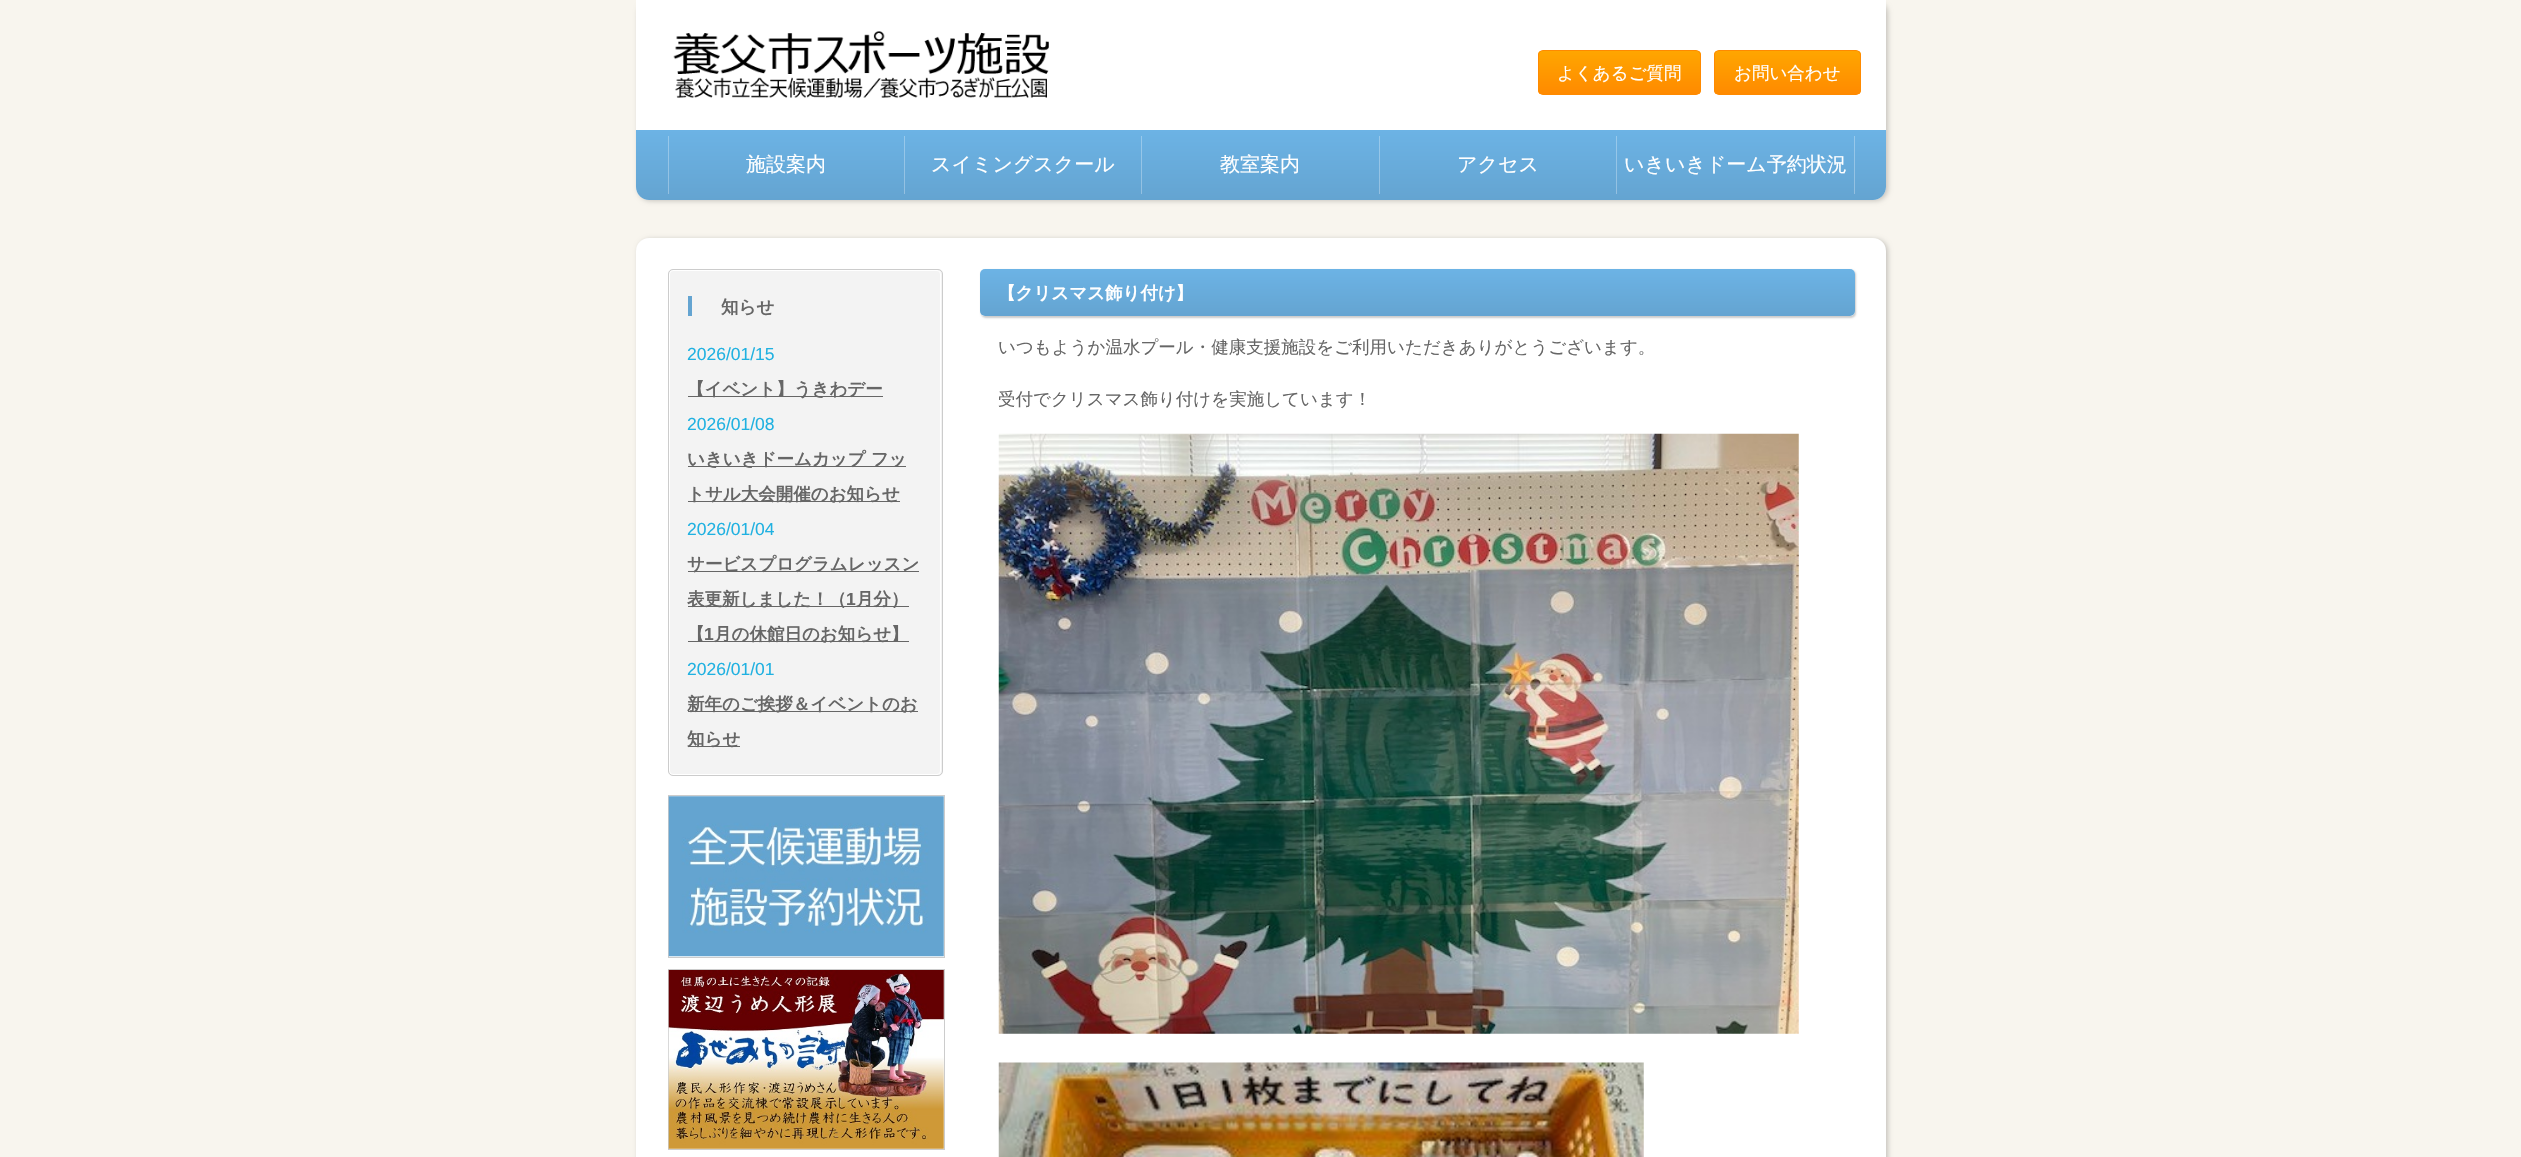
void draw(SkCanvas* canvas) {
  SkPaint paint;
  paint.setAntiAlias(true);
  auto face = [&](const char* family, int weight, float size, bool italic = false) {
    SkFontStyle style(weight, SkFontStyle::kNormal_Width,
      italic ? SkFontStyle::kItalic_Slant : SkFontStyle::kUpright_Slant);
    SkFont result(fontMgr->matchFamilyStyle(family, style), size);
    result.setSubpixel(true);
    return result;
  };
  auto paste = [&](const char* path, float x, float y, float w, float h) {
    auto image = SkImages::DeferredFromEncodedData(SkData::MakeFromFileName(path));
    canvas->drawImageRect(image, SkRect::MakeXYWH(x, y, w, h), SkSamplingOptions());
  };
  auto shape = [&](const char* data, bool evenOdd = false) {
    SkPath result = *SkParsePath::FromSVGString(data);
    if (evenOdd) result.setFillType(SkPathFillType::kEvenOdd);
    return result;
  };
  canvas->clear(0xfff8f5ee);
  paint.setColor(0x33000000);
  paint.setMaskFilter(SkMaskFilter::MakeBlur(kNormal_SkBlurStyle, 2.5f));
  canvas->drawRoundRect(SkRect::MakeXYWH(638, 1, 1250, 200), 13, 13, paint);
  paint.setMaskFilter(nullptr);
  paint.setColor(0xffffffff);
  canvas->drawPath(shape("M636 0H1886V187C1886 194 1880 200 1873 200H649C642 200 636 194 636 187Z"), paint);
  paste("img/1.png", 673, 31, 376, 67);
  canvas->save();
  canvas->clipPath(shape("M1543 50H1696C1699 50 1701 52 1701 55V90C1701 93 1699 95 1696 95H1543C1540 95 1538 93 1538 90V55C1538 52 1540 50 1543 50Z"), true);
  {
    const SkColor colors[] = {0xffffa600, 0xffff8a00};
    const float stops[] = {0, 1};
    const SkPoint ends[] = {{1619, 51}, {1619, 94}};
    paint.setShader(SkGradientShader::MakeLinear(ends, colors, stops, 2, SkTileMode::kClamp));
    paint.setAlpha(255);
  }
  canvas->drawRect(SkRect::MakeXYWH(1538, 51, 163, 43), paint);
  canvas->restore();
  paint.setStroke(true);
  paint.setStrokeWidth(1);
  paint.setShader(nullptr);
  paint.setColor(0xffff8a00);
  canvas->drawRoundRect(SkRect::MakeXYWH(1538.5f, 50.5f, 162, 44), 4.5f, 4.5f, paint);
  canvas->save();
  canvas->clipPath(shape("M1719 50H1856C1859 50 1861 52 1861 55V90C1861 93 1859 95 1856 95H1719C1716 95 1714 93 1714 90V55C1714 52 1716 50 1719 50Z"), true);
  paint.setStroke(false);
  {
    const SkColor colors[] = {0xffffa600, 0xffff8a00};
    const float stops[] = {0, 1};
    const SkPoint ends[] = {{1788, 51}, {1788, 94}};
    paint.setShader(SkGradientShader::MakeLinear(ends, colors, stops, 2, SkTileMode::kClamp));
    paint.setAlpha(255);
  }
  canvas->drawRect(SkRect::MakeXYWH(1714, 51, 147, 43), paint);
  canvas->restore();
  paint.setStroke(true);
  paint.setShader(nullptr);
  paint.setColor(0xffff8a00);
  canvas->drawRoundRect(SkRect::MakeXYWH(1714.5f, 50.5f, 146, 44), 4.5f, 4.5f, paint);
  paint.setStroke(false);
  {
    const SkColor colors[] = {0xff6cb3e5, 0xff64a4d1};
    const float stops[] = {0, 1};
    const SkPoint ends[] = {{1261, 130}, {1261, 200}};
    paint.setShader(SkGradientShader::MakeLinear(ends, colors, stops, 2, SkTileMode::kClamp));
    paint.setAlpha(255);
  }
  canvas->drawPath(shape("M636 130H1886V187C1886 194 1880 200 1873 200H649C642 200 636 194 636 187Z"), paint);
  {
    const SkColor colors[] = {0xff98caed, 0xff93bfdf};
    const float stops[] = {0, 1};
    const SkPoint ends[] = {{1261, 130}, {1261, 200}};
    paint.setShader(SkGradientShader::MakeLinear(ends, colors, stops, 2, SkTileMode::kClamp));
    paint.setAlpha(255);
  }
  canvas->drawRect(SkRect::MakeXYWH(1854, 136, 1, 58), paint);
  canvas->drawRect(SkRect::MakeXYWH(1616, 136, 1, 58), paint);
  canvas->drawRect(SkRect::MakeXYWH(1379, 136, 1, 58), paint);
  canvas->drawRect(SkRect::MakeXYWH(1141, 136, 1, 58), paint);
  canvas->drawRect(SkRect::MakeXYWH(668, 136, 1, 58), paint);
  canvas->drawRect(SkRect::MakeXYWH(904, 136, 1, 58), paint);
  paint.setShader(nullptr);
  paint.setColor(0x33000000);
  paint.setMaskFilter(SkMaskFilter::MakeBlur(kNormal_SkBlurStyle, 2.5f));
  canvas->drawRoundRect(SkRect::MakeXYWH(638, 239, 1250, 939), 13, 13, paint);
  paint.setMaskFilter(nullptr);
  paint.setColor(0xffffffff);
  canvas->drawRoundRect(SkRect::MakeXYWH(636, 238, 1250, 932), 13, 13, paint);
  paint.setColor(0xfff3f3f3);
  canvas->drawRoundRect(SkRect::MakeXYWH(668, 269, 275, 507), 5, 5, paint);
  paint.setStroke(true);
  paint.setColor(0xffffffff);
  canvas->drawRoundRect(SkRect::MakeXYWH(669.5f, 270.5f, 271, 504), 3.5f, 3.5f, paint);
  paint.setColor(0xffcccccc);
  canvas->drawRoundRect(SkRect::MakeXYWH(668.5f, 269.5f, 274, 506), 4.5f, 4.5f, paint);
  paint.setStroke(false);
  {
    const struct { float x, y, w, h; SkColor color; } items[] = {
      {688, 296, 4, 20, 0xff64a4d1},
      {688, 396, 195, 1, 0xff666666},
      {688, 466, 218, 1, 0xff666666},
      {688, 501, 212, 1, 0xff666666},
      {688, 571, 231, 1, 0xff666666},
      {688, 606, 221, 1, 0xff666666},
      {688, 641, 221, 1, 0xff666666},
      {688, 711, 230, 1, 0xff666666},
      {688, 746, 52, 1, 0xff666666},
    };
    for (auto [x, y, w, h, color] : items) {
      paint.setColor(color);
      canvas->drawRect(SkRect::MakeXYWH(x, y, w, h), paint);
    }
  }
  paint.setStroke(true);
  paint.setColor(0xffcccccc);
  canvas->drawRect(SkRect::MakeXYWH(668.5f, 795.5f, 276, 162), paint);
  paste("img/2.png", 668, 796, 276, 161);
  canvas->drawRect(SkRect::MakeXYWH(668.5f, 969.5f, 276, 180), paint);
  paste("img/3.png", 668, 970, 276, 179);
  canvas->save();
  canvas->clipPath(shape("M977 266H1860V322H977ZM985 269H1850C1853 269 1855 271 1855 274V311C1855 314 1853 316 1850 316H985C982 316 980 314 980 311V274C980 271 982 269 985 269Z", true), true);
  paint.setStroke(false);
  paint.setColor(0x33000000);
  paint.setMaskFilter(SkMaskFilter::MakeBlur(kNormal_SkBlurStyle, 1));
  canvas->drawRoundRect(SkRect::MakeXYWH(981, 270, 875, 48), 5, 5, paint);
  paint.setMaskFilter(nullptr);
  canvas->restore();
  {
    const SkColor colors[] = {0xff6cb3e5, 0xff64a4d1};
    const float stops[] = {0, 1};
    const SkPoint ends[] = {{1418, 269}, {1418, 316}};
    paint.setShader(SkGradientShader::MakeLinear(ends, colors, stops, 2, SkTileMode::kClamp));
    paint.setAlpha(255);
  }
  canvas->drawRoundRect(SkRect::MakeXYWH(980, 269, 875, 47), 5, 5, paint);
  paste("img/4.png", 998, 433, 801, 601);
  paste("img/5.png", 998, 1062, 646, 95);
  auto f0 = face("WenQuanYi Zen Hei", 500, 17.5f);
  paint.setShader(nullptr);
  paint.setColor(0xffffffff);
  canvas->drawString("よくあるご質問", 1557, 79, f0, paint);
  canvas->drawString("お問い合わせ", 1734, 79, f0, paint);
  auto f1 = face("WenQuanYi Zen Hei", 500, 20);
  {
    const struct { const char* s; float x, y; } items[] = {
      {"施設案内", 746, 171},
      {"スイミングスクール", 931, 171},
      {"教室案内", 1220, 171},
      {"アクセス", 1457, 171},
      {"いきいきドーム予約状況", 1624, 171},
    };
    for (auto [s, x, y] : items) {
      canvas->drawString(s, x, y, f1, paint);
    }
  }
  auto f2 = face("Noto Sans", 100, 17.5f);
  paint.setColor(0xff666666);
  canvas->drawString("お", 703, 313, f2, paint);
  auto f3 = face("WenQuanYi Zen Hei", 700, 17.5f);
  canvas->drawString("知らせ", 721, 313, f3, paint);
  auto f4 = face("Liberation Sans", 400, 17.5f);
  paint.setColor(0xff20b1e1);
  canvas->drawString("2026/01/15", 687, 360, f4, paint);
  paint.setColor(0xff666666);
  canvas->drawString("【イベント】うきわデー", 687, 395, f3, paint);
  paint.setColor(0xff20b1e1);
  canvas->drawString("2026/01/08", 687, 430, f4, paint);
  paint.setColor(0xff666666);
  canvas->drawString("いきいきドームカップ フッ", 687, 465, f3, paint);
  canvas->drawString("トサル大会開催のお知らせ", 687, 500, f3, paint);
  paint.setColor(0xff20b1e1);
  canvas->drawString("2026/01/04", 687, 535, f4, paint);
  paint.setColor(0xff666666);
  canvas->drawString("サービスプログラムレッスン", 687, 570, f3, paint);
  canvas->drawString("表更新しました！（", 687, 605, f3, paint);
  auto f5 = face("Liberation Sans", 700, 17.5f);
  canvas->drawString("1", 846, 605, f5, paint);
  canvas->drawString("月分）", 856, 605, f3, paint);
  canvas->drawString("【", 687, 640, f3, paint);
  canvas->drawString("1", 704, 640, f5, paint);
  canvas->drawString("月の休館日のお知らせ】", 714, 640, f3, paint);
  paint.setColor(0xff20b1e1);
  canvas->drawString("2026/01/01", 687, 675, f4, paint);
  paint.setColor(0xff666666);
  canvas->drawString("新年のご挨拶＆イベントのお", 687, 710, f3, paint);
  canvas->drawString("知らせ", 687, 745, f3, paint);
  paint.setColor(0xffffffff);
  canvas->drawString("【クリスマス飾り付け】", 998, 299, f3, paint);
  paint.setColor(0xff666666);
  canvas->drawString("いつもようか温水プール・健康支援施設をご利用いただきありがとうございます。", 998, 353, f0, paint);
  canvas->drawString("受付でクリスマス飾り付けを実施しています！", 998, 405, f0, paint);
}
